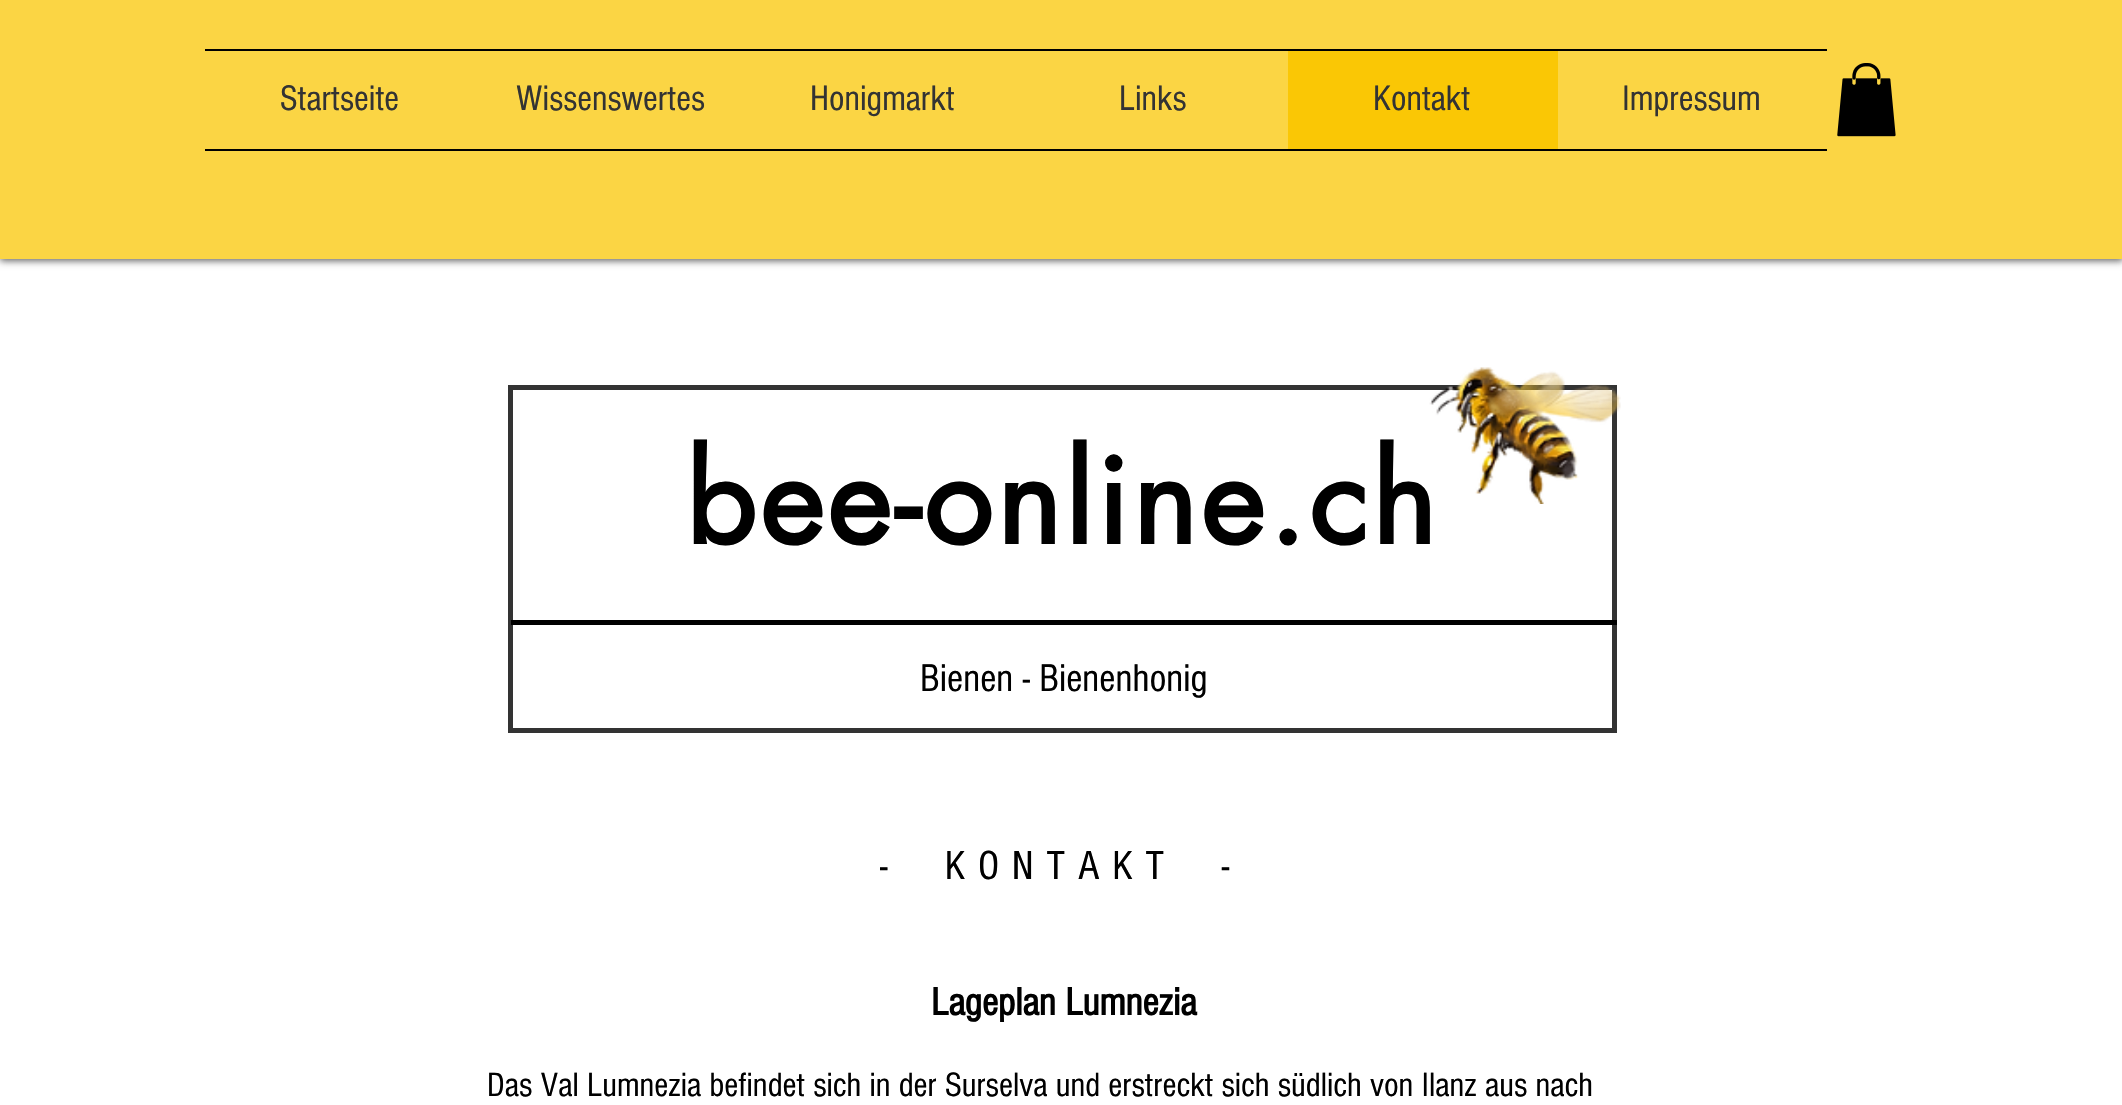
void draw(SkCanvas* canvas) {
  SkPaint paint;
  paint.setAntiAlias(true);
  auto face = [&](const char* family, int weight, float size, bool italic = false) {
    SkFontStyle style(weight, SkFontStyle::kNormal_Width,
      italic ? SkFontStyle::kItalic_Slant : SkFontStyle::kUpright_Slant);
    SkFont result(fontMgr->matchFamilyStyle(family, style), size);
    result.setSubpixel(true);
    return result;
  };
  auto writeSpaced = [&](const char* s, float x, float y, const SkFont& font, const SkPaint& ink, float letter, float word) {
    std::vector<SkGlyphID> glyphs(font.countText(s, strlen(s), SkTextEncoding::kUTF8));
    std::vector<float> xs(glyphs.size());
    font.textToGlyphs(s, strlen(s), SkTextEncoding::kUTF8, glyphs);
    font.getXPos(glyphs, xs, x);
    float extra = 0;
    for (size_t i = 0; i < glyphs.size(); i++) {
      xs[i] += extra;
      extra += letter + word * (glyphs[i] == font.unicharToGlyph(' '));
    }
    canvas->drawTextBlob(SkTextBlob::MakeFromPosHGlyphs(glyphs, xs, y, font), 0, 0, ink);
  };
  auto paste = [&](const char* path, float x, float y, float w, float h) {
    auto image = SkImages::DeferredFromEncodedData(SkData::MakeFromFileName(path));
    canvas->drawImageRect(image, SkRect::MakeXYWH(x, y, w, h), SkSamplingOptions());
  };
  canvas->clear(0xffffffff);
  paint.setColor(0x99000000);
  paint.setMaskFilter(SkMaskFilter::MakeBlur(kNormal_SkBlurStyle, 3.5f));
  canvas->drawRect(SkRect::MakeXYWH(0, 2, 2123, 259), paint);
  paint.setMaskFilter(nullptr);
  {
    const struct { float x, y, w, h; SkColor color; } items[] = {
      {0, 0, 2122, 259, 0xfffbd544},
      {205, 49, 1622, 2, 0xff000000},
      {205, 149, 1622, 2, 0xff000000},
      {1288, 51, 270, 98, 0xfffac705},
    };
    for (auto [x, y, w, h, color] : items) {
      paint.setColor(color);
      canvas->drawRect(SkRect::MakeXYWH(x, y, w, h), paint);
    }
  }
  paste("img/1.png", 1837, 63, 59, 74);
  paint.setStroke(true);
  paint.setStrokeWidth(5);
  paint.setColor(0xff333333);
  canvas->drawRect(SkRect::MakeXYWH(510.5f, 387.5f, 1104, 343), paint);
  paste("img/2.png", 1429, 367, 192, 137);
  paint.setStroke(false);
  paint.setColor(0xff000000);
  canvas->drawRect(SkRect::MakeXYWH(511, 620, 1106, 5), paint);
  auto f0 = face("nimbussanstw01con", 400, 36.75f);
  paint.setColor(0xff333333);
  {
    const struct { const char* s; float x, y; } items[] = {
      {"Startseite", 280, 110},
      {"Wissenswertes", 516, 110},
      {"Honigmarkt", 810, 110},
      {"Links", 1119, 110},
      {"Kontakt", 1373, 110},
      {"Impressum", 1622, 110},
    };
    for (auto [s, x, y] : items) {
      canvas->drawString(s, x, y, f0, paint);
    }
  }
  auto f1 = face("futura", 700, 122.5f);
  paint.setColor(0xff000000);
  writeSpaced("bee-online.ch", 685, 544, f1, paint, 3.75f, 0);
  auto f2 = face("nimbussanstw01con", 400, 40.25f);
  canvas->drawString("Bienen - Bienenhonig", 920, 691, f2, paint);
  auto f3 = face("nimbussanstw01con", 400, 42);
  writeSpaced("-  KONTAKT  -", 880, 879, f3, paint, 12.6f, 0);
  auto f4 = face("nimbussanstw01con", 700, 40.25f);
  canvas->drawString("Lageplan Lumnezia", 931, 1015, f4, paint);
  auto f5 = face("nimbussanstw01con", 400, 35);
  canvas->drawString("Das Val Lumnezia befindet sich in der Surselva und erstreckt sich südlich von Ilanz aus nach", 487, 1096, f5, paint);
}
